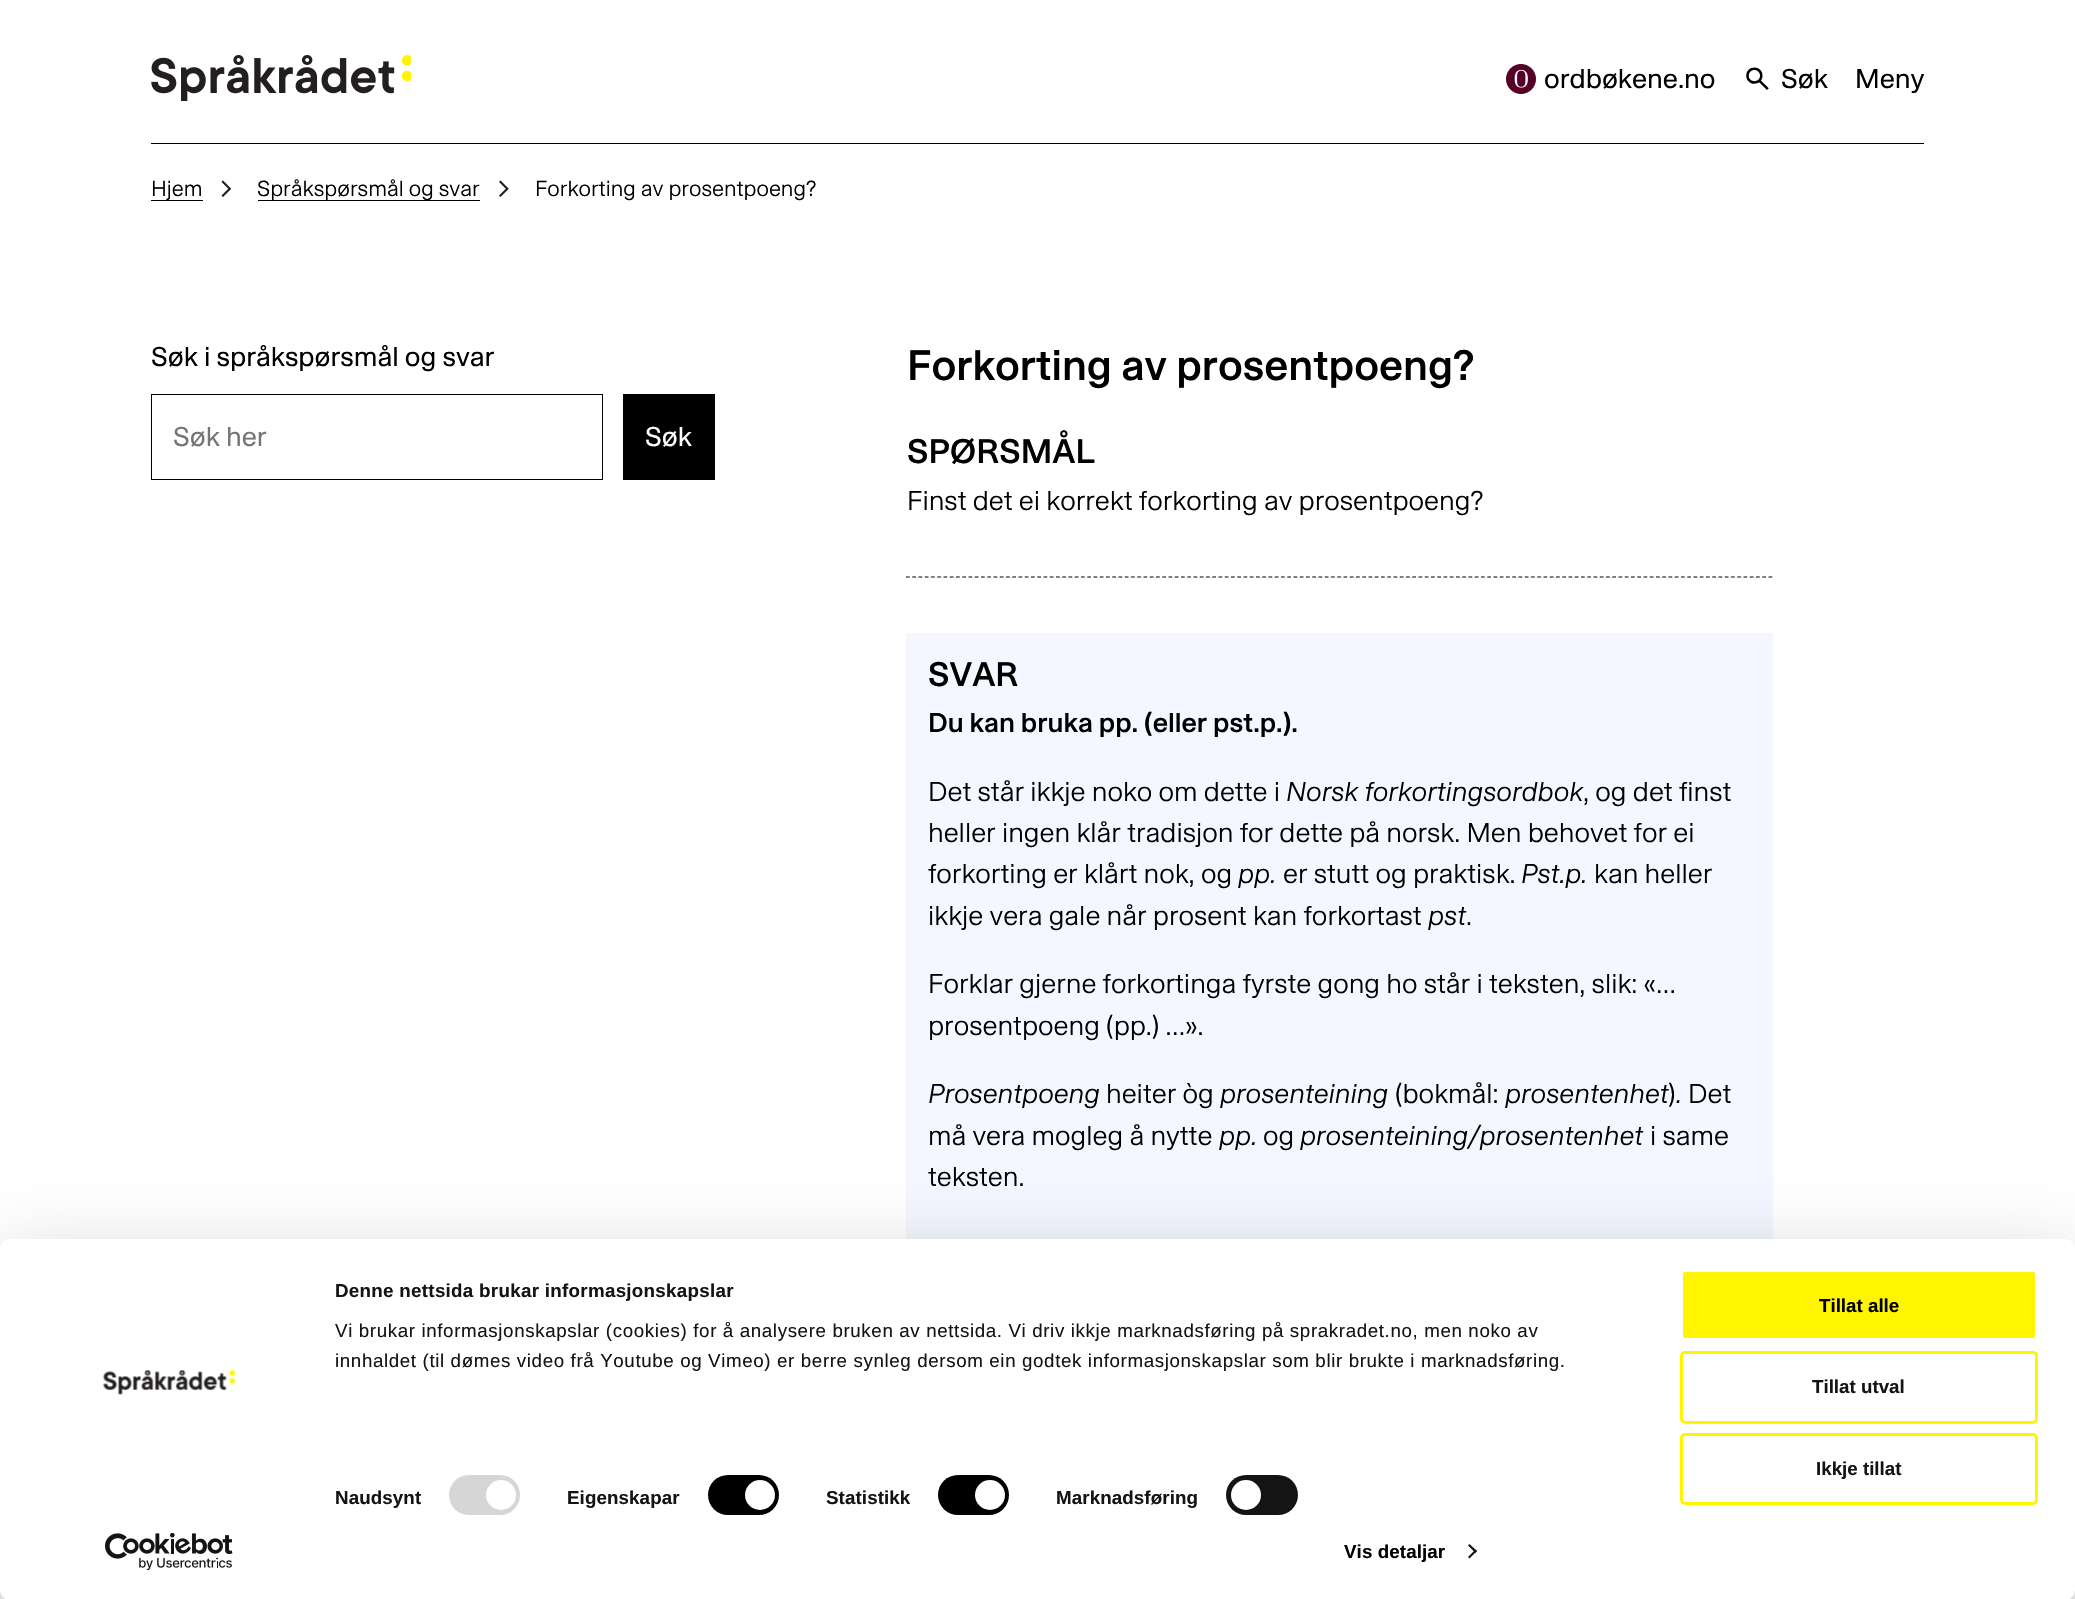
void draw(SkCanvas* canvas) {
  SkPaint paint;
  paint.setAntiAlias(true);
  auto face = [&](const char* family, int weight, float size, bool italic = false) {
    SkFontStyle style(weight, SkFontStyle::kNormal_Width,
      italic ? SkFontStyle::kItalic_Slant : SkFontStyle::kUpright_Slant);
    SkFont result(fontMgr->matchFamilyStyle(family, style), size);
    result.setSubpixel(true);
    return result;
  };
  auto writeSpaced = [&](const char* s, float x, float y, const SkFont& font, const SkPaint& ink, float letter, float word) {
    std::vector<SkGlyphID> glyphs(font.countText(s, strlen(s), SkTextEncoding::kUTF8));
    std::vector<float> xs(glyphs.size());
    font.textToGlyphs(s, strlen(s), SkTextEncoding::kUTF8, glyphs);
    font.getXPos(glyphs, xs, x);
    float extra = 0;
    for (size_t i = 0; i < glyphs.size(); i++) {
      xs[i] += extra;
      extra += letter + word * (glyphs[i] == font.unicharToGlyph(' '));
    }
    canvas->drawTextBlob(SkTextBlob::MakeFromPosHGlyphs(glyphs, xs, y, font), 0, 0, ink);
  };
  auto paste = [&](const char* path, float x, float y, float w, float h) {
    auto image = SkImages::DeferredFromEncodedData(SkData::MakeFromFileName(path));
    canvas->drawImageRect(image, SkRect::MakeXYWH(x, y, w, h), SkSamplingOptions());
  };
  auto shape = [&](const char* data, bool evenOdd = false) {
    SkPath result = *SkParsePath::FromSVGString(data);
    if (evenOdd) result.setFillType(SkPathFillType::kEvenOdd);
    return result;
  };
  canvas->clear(0xffffffff);
  paint.setColor(0xff000000);
  canvas->drawRect(SkRect::MakeXYWH(151, 143, 1773, 1), paint);
  paste("img/1.png", 151, 55, 260, 46);
  paste("img/2.png", 1506, 64, 30, 30);
  paste("img/3.png", 1746, 67, 23, 23);
  canvas->drawRect(SkRect::MakeXYWH(151, 200, 52, 1), paint);
  paste("img/4.png", 221, 180, 11, 17);
  canvas->drawRect(SkRect::MakeXYWH(258, 200, 222, 1), paint);
  paste("img/5.png", 499, 180, 10, 17);
  paint.setStroke(true);
  paint.setStrokeWidth(1);
  canvas->drawRect(SkRect::MakeXYWH(151.5f, 394.5f, 451, 85), paint);
  paint.setStroke(false);
  canvas->drawRect(SkRect::MakeXYWH(623, 394, 92, 86), paint);
  paint.setStroke(true);
  paint.setStrokeWidth(1.2f);
  paint.setPathEffect(SkDashPathEffect::Make({{3.75f, 2.5f}}, 0));
  canvas->drawPath(shape("M906 577H1772.5"), paint);
  paint.setPathEffect(nullptr);
  paint.setStroke(false);
  paint.setColor(0xfff4f7ff);
  canvas->drawRect(SkRect::MakeXYWH(906, 633, 867, 606), paint);
  paint.setColor(0x4d000000);
  paint.setMaskFilter(SkMaskFilter::MakeBlur(kNormal_SkBlurStyle, 44));
  canvas->drawRoundRect(SkRect::MakeXYWH(0, 1276, 2075, 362), 10, 10, paint);
  paint.setMaskFilter(nullptr);
  paint.setColor(0xffffffff);
  canvas->drawRoundRect(SkRect::MakeXYWH(0, 1239, 2075, 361), 10, 10, paint);
  paste("img/6.png", 103, 1370, 132, 25);
  paste("img/7.png", 105, 1533, 128, 37);
  paint.setColor(0xffd6d6d6);
  canvas->drawRoundRect(SkRect::MakeXYWH(449, 1475, 71, 40), 20, 20, paint);
  paint.setColor(0xffffffff);
  canvas->drawCircle(501, 1495, 15, paint);
  paint.setColor(0xff000000);
  canvas->drawRoundRect(SkRect::MakeXYWH(708, 1475, 71, 40), 20, 20, paint);
  paint.setColor(0xffffffff);
  canvas->drawCircle(760, 1495, 15, paint);
  paint.setColor(0xff000000);
  canvas->drawRoundRect(SkRect::MakeXYWH(938, 1475, 71, 40), 20, 20, paint);
  paint.setColor(0xffffffff);
  canvas->drawCircle(990, 1495, 15, paint);
  paint.setColor(0xff141414);
  canvas->drawRoundRect(SkRect::MakeXYWH(1226, 1475, 72, 40), 20, 20, paint);
  paint.setColor(0xffffffff);
  canvas->drawCircle(1246, 1495, 15, paint);
  paint.setColor(0xff141414);
  canvas->drawPath(shape("M1469.5 1544L1477 1551L1475.5 1553L1468 1545.5Z"), paint);
  canvas->drawPath(shape("M1475.5 1549.5L1477 1551L1469.5 1558.5L1468 1557Z"), paint);
  paint.setColor(0xfffff500);
  canvas->drawRoundRect(SkRect::MakeXYWH(1681.5f, 1270.5f, 355, 69), 3.5f, 3.5f, paint);
  paint.setStroke(true);
  paint.setStrokeWidth(3);
  paint.setColor(0xffffffff);
  canvas->drawRoundRect(SkRect::MakeXYWH(1681.5f, 1270.5f, 355, 69), 3.5f, 3.5f, paint);
  paint.setColor(0xfffff500);
  canvas->drawRoundRect(SkRect::MakeXYWH(1681.5f, 1352.5f, 355, 70), 3.5f, 3.5f, paint);
  canvas->drawRoundRect(SkRect::MakeXYWH(1681.5f, 1434.5f, 355, 69), 3.5f, 3.5f, paint);
  auto f0 = face("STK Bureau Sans", 400, 27.5f);
  paint.setStroke(false);
  paint.setColor(0xff000000);
  {
    const struct { const char* s; float x, y; } items[] = {
      {"ordbøkene.no", 1544, 88},
      {"Søk", 1781, 88},
      {"Meny", 1855, 88},
    };
    for (auto [s, x, y] : items) {
      canvas->drawString(s, x, y, f0, paint);
    }
  }
  auto f1 = face("STK Bureau Sans", 300, 22);
  {
    const struct { const char* s; float x, y; } items[] = {
      {"Hjem", 151, 196},
      {"Språkspørsmål og svar", 257, 196},
      {"Forkorting av prosentpoeng?", 535, 196},
    };
    for (auto [s, x, y] : items) {
      canvas->drawString(s, x, y, f1, paint);
    }
  }
  canvas->drawString("Søk i språkspørsmål og svar", 151, 366, f0, paint);
  paint.setColor(0xff757575);
  canvas->drawString("Søk her", 173, 446, f0, paint);
  paint.setColor(0xffffffff);
  canvas->drawString("Søk", 645, 446, f0, paint);
  auto f2 = face("STK Bureau Sans", 500, 43);
  paint.setColor(0xff000000);
  canvas->drawString("Forkorting av prosentpoeng?", 907, 380, f2, paint);
  auto f3 = face("STK Bureau Sans", 500, 34.5f);
  canvas->drawString("SPØRSMÅL", 907, 463, f3, paint);
  auto f4 = face("STK Bureau Sans", 300, 27.5f);
  canvas->drawString("Finst det ei korrekt forkorting av prosentpoeng?", 907, 510, f4, paint);
  canvas->drawString("SVAR", 928, 686, f3, paint);
  auto f5 = face("STK Bureau Sans", 500, 27.5f);
  canvas->drawString("Du kan bruka pp. (eller pst.p.).", 928, 732, f5, paint);
  canvas->drawString("Det står ikkje noko om dette i", 928, 801, f4, paint);
  auto f6 = face("STK Bureau Sans", 300, 27.5f, true);
  canvas->drawString("Norsk forkortingsordbok", 1286, 801, f6, paint);
  {
    const struct { const char* s; float x, y; } items[] = {
      {", og det finst", 1583, 801},
      {"heller ingen klår tradisjon for dette på norsk. Men behovet for ei", 928, 842},
      {"forkorting er klårt nok, og", 928, 883},
    };
    for (auto [s, x, y] : items) {
      canvas->drawString(s, x, y, f4, paint);
    }
  }
  canvas->drawString("pp.", 1238, 883, f6, paint);
  canvas->drawString("er stutt og praktisk.", 1283, 883, f4, paint);
  canvas->drawString("Pst.p.", 1521, 883, f6, paint);
  canvas->drawString("kan heller", 1594, 883, f4, paint);
  canvas->drawString("ikkje vera gale når prosent kan forkortast", 928, 925, f4, paint);
  canvas->drawString("pst", 1428, 925, f6, paint);
  {
    const struct { const char* s; float x, y; } items[] = {
      {".", 1466, 925},
      {"Forklar gjerne forkortinga fyrste gong ho står i teksten, slik: «…", 928, 993},
      {"prosentpoeng (pp.) …».", 928, 1035},
    };
    for (auto [s, x, y] : items) {
      canvas->drawString(s, x, y, f4, paint);
    }
  }
  canvas->drawString("Prosentpoeng", 928, 1103, f6, paint);
  canvas->drawString("heiter òg", 1106, 1103, f4, paint);
  canvas->drawString("prosenteining", 1220, 1103, f6, paint);
  canvas->drawString("(bokmål:", 1395, 1103, f4, paint);
  canvas->drawString("prosentenhet", 1505, 1103, f6, paint);
  canvas->drawString(")", 1668, 1103, f4, paint);
  canvas->drawString(".", 1676, 1103, f6, paint);
  canvas->drawString("Det", 1688, 1103, f4, paint);
  canvas->drawString("må vera mogleg å nytte", 928, 1145, f4, paint);
  canvas->drawString("pp.", 1219, 1145, f6, paint);
  canvas->drawString("og", 1263, 1145, f4, paint);
  canvas->drawString("prosenteining/prosentenhet", 1300, 1145, f6, paint);
  canvas->drawString("i same", 1650, 1145, f4, paint);
  canvas->drawString("teksten.", 928, 1186, f4, paint);
  auto f7 = face("Liberation Sans", 700, 18.75f);
  paint.setColor(0xff141414);
  writeSpaced("Denne nettsida brukar informasjonskapslar", 335, 1297, f7, paint, 0.3f, 0);
  auto f8 = face("Liberation Sans", 400, 18.75f);
  writeSpaced("Vi brukar informasjonskapslar (cookies) for å analysere bruken av nettsida. Vi driv ikkje marknadsføring på sprakradet.no, men noko av", 335, 1337, f8, paint, 0.62f, 0);
  writeSpaced("innhaldet (til dømes video frå Youtube og Vimeo) er berre synleg dersom ein godtek informasjonskapslar som blir brukte i marknadsføring.", 335, 1367, f8, paint, 0.62f, 0);
  {
    const struct { const char* s; float x, y; } items[] = {
      {"Naudsynt", 335, 1504},
      {"Eigenskapar", 567, 1504},
      {"Statistikk", 826, 1504},
      {"Marknadsføring", 1056, 1504},
    };
    for (auto [s, x, y] : items) {
      writeSpaced(s, x, y, f7, paint, 0.1f, 0);
    }
  }
  paint.setColor(0xff000000);
  writeSpaced("Vis detaljar", 1344, 1558, f7, paint, 0.1f, 0);
  canvas->drawString("Tillat alle", 1819, 1312, f7, paint);
  paint.setColor(0xff141414);
  canvas->drawString("Tillat utval", 1812, 1393, f7, paint);
  canvas->drawString("Ikkje tillat", 1816, 1475, f7, paint);
}
